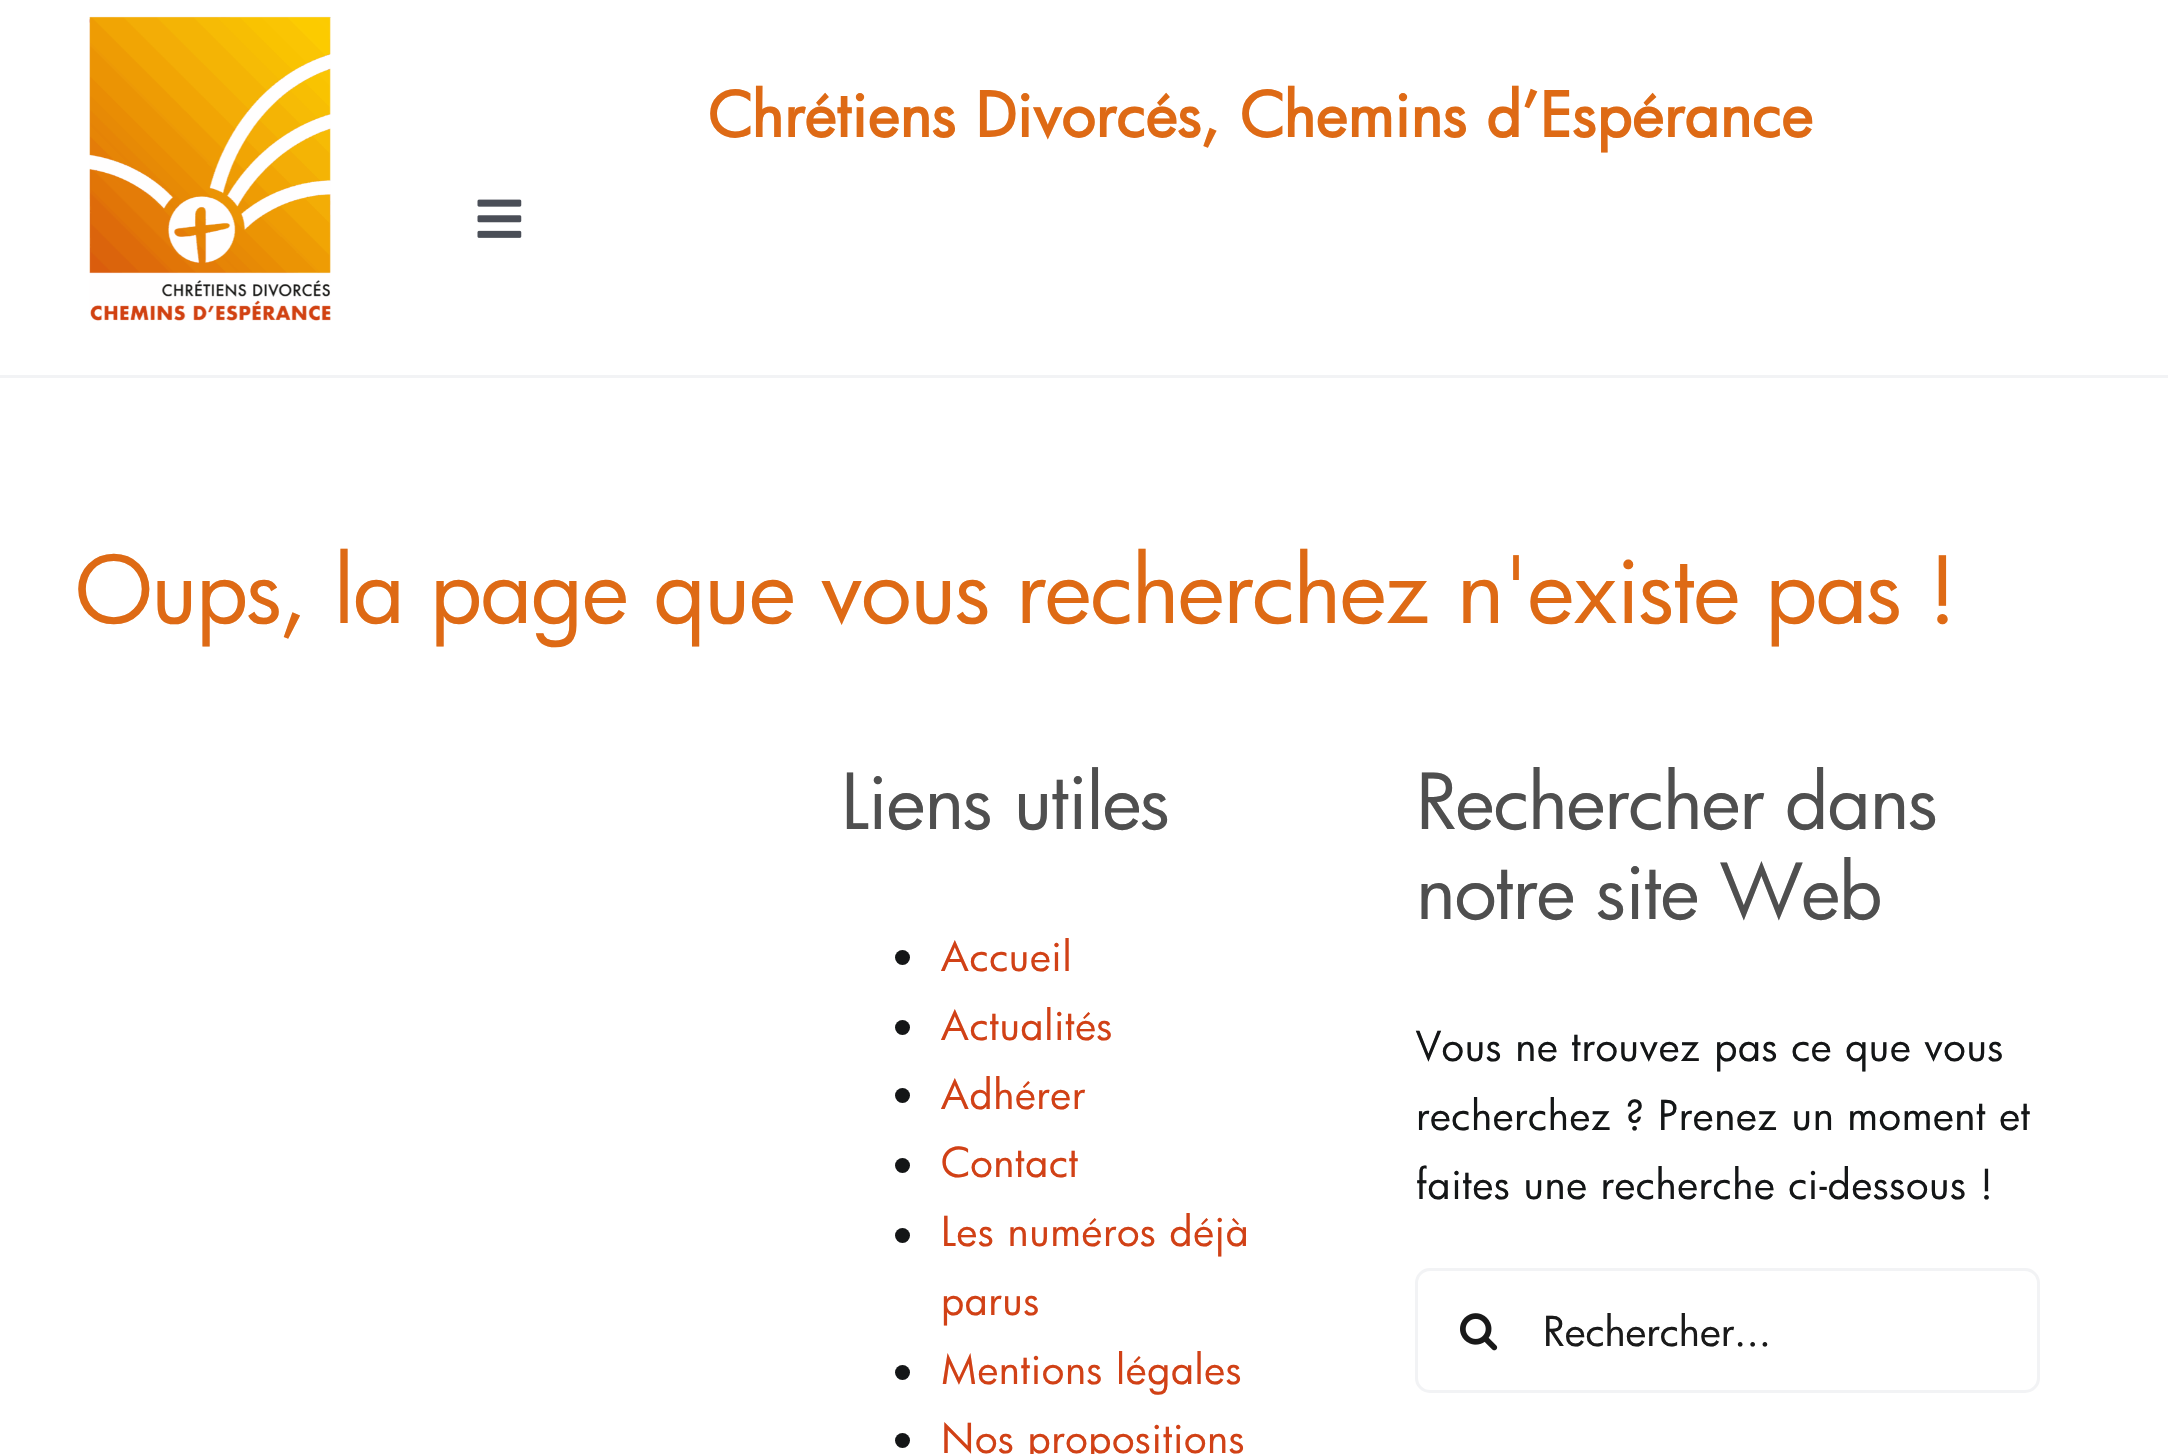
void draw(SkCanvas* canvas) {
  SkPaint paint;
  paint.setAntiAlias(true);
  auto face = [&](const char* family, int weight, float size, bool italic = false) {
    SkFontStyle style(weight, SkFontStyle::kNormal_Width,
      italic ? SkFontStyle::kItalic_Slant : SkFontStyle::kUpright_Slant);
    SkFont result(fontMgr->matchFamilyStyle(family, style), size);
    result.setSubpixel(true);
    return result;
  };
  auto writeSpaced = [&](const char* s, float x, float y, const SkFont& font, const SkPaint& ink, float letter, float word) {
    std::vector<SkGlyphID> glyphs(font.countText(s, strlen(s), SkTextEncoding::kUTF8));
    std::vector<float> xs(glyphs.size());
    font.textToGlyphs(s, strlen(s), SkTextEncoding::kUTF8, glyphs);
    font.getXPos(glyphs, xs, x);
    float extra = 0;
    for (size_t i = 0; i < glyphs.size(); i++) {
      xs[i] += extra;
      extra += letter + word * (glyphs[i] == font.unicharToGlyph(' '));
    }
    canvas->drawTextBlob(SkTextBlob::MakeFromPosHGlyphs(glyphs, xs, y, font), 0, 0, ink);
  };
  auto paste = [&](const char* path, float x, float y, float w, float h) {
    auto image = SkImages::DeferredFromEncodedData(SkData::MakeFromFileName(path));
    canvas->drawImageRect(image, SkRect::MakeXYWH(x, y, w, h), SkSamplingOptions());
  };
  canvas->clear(0xffffffff);
  paint.setColor(0xfff2f3f5);
  canvas->drawRect(SkRect::MakeXYWH(0, 375, 2168, 3), paint);
  paste("img/1.png", 89, 16, 242, 305);
  paste("img/2.png", 477, 199, 45, 39);
  paint.setColor(0xff141617);
  canvas->drawCircle(902.5f, 957.5f, 7.5f, paint);
  canvas->drawCircle(902.5f, 1027.5f, 7.5f, paint);
  canvas->drawCircle(902.5f, 1095.5f, 7.5f, paint);
  canvas->drawCircle(902.5f, 1165.5f, 7.5f, paint);
  canvas->drawCircle(902.5f, 1235.5f, 7.5f, paint);
  canvas->drawCircle(902.5f, 1372.5f, 7.5f, paint);
  canvas->drawCircle(902.5f, 1440.5f, 7.5f, paint);
  paint.setStroke(true);
  paint.setStrokeWidth(3);
  paint.setColor(0xfff2f3f5);
  canvas->drawRoundRect(SkRect::MakeXYWH(1416.5f, 1269.5f, 622, 122), 13.5f, 13.5f, paint);
  paste("img/3.png", 1460, 1313, 38, 38);
  auto f0 = face("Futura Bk", 700, 60);
  paint.setStroke(false);
  paint.setColor(0xffde6a15);
  writeSpaced("Chrétiens Divorcés, Chemins d’Espérance", 708, 137, f0, paint, 0.6f, 0);
  auto f1 = face("Futura Bk", 400, 90);
  writeSpaced("Oups, la page que vous recherchez n'existe pas !", 75, 623, f1, paint, -1.35f, 0);
  auto f2 = face("Futura Bk", 400, 75);
  paint.setColor(0xff4f4f4f);
  writeSpaced("Liens utiles", 841, 829, f2, paint, -1.1f, 0);
  auto f3 = face("Futura Bk", 400, 40);
  paint.setColor(0xffd14116);
  {
    const struct { const char* s; float x, y; } items[] = {
      {"Accueil", 941, 971},
      {"Actualités", 941, 1040},
      {"Adhérer", 941, 1109},
      {"Contact", 941, 1177},
      {"Les numéros déjà", 941, 1246},
      {"parus", 941, 1315},
      {"Mentions légales", 941, 1384},
      {"Nos propositions", 941, 1453},
    };
    for (auto [s, x, y] : items) {
      writeSpaced(s, x, y, f3, paint, 0.6f, 0);
    }
  }
  paint.setColor(0xff4f4f4f);
  writeSpaced("Rechercher dans", 1416, 829, f2, paint, -1.1f, 0);
  writeSpaced("notre site Web", 1416, 919, f2, paint, -1.1f, 0);
  paint.setColor(0xff141617);
  {
    const struct { const char* s; float x, y; } items[] = {
      {"Vous ne trouvez pas ce que vous", 1416, 1061},
      {"recherchez ? Prenez un moment et", 1416, 1130},
      {"faites une recherche ci-dessous !", 1416, 1199},
    };
    for (auto [s, x, y] : items) {
      writeSpaced(s, x, y, f3, paint, 0.6f, 0);
    }
  }
  paint.setColor(0xff1a1a1a);
  canvas->drawString("Rechercher...", 1543, 1346, f3, paint);
}
